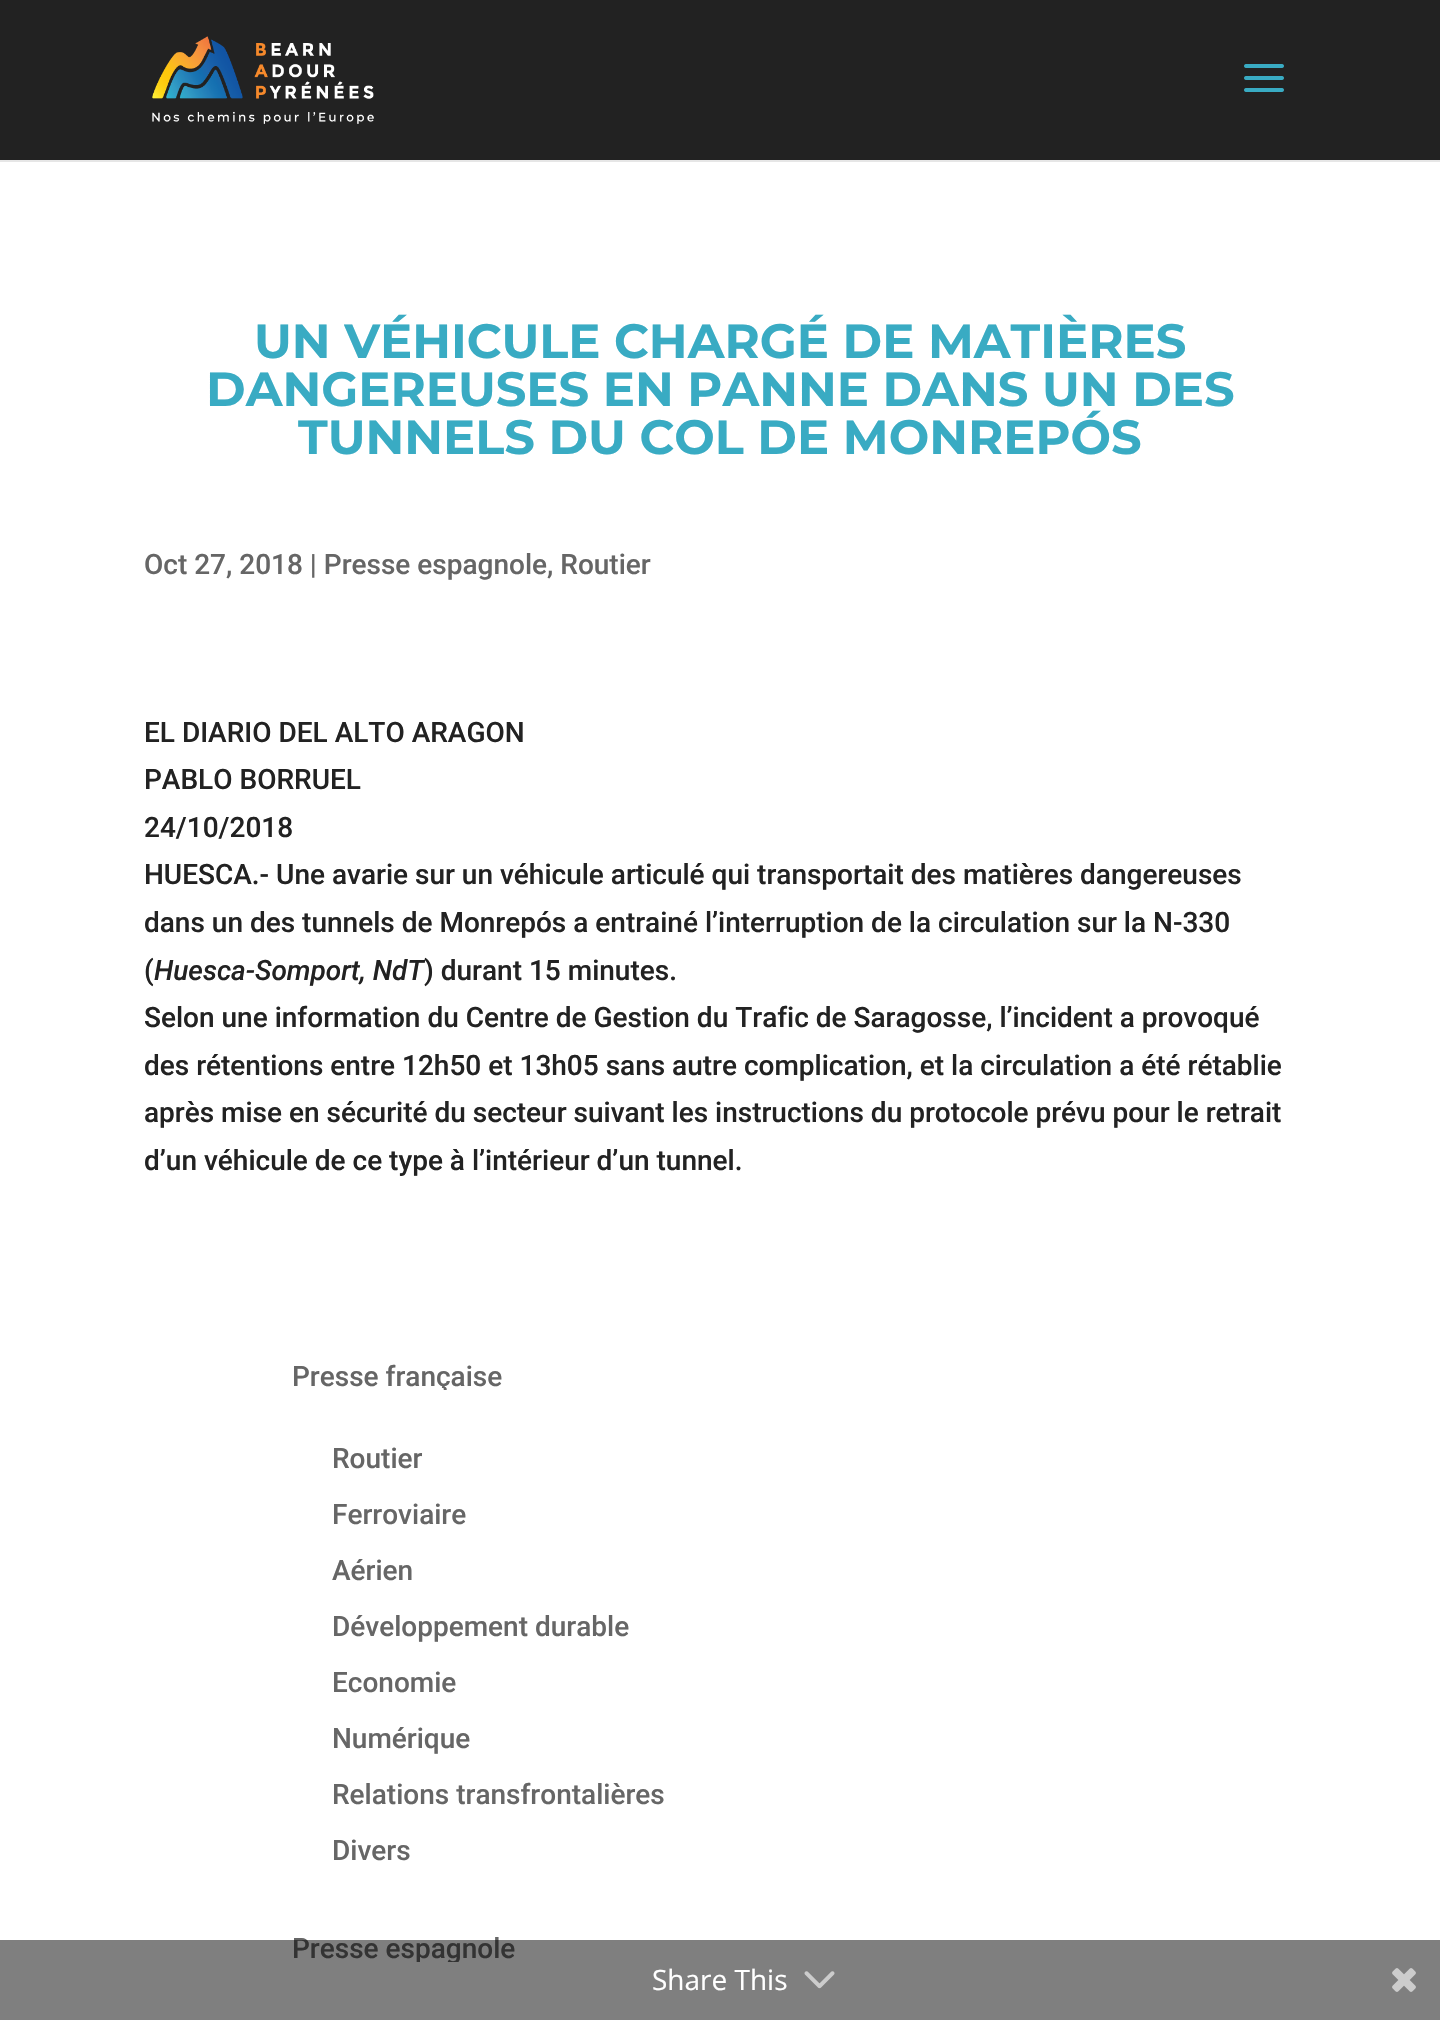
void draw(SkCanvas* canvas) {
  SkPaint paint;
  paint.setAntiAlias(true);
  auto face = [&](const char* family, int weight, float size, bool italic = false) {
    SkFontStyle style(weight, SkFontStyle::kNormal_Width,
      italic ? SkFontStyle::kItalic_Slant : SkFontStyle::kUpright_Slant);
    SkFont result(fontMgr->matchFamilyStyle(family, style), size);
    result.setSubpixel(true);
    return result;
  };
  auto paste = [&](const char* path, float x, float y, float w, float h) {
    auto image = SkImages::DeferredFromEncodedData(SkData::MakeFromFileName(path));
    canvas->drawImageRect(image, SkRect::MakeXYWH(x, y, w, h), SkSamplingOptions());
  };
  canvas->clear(0xffffffff);
  paint.setColor(0xffe6e6e6);
  canvas->drawRect(SkRect::MakeXYWH(0, 160, 1440, 2), paint);
  paint.setColor(0xff222222);
  canvas->drawRect(SkRect::MakeXYWH(0, 0, 1440, 160), paint);
  paste("img/1.png", 152, 36, 222, 88);
  paste("img/2.png", 1244, 64, 40, 28);
  auto f0 = face("Montserrat", 700, 48);
  paint.setColor(0xff39abc3);
  {
    const struct { const char* s; float x, y; } items[] = {
      {"UN VÉHICULE CHARGÉ DE MATIÈRES", 254, 358},
      {"DANGEREUSES EN PANNE DANS UN DES", 206, 406},
      {"TUNNELS DU COL DE MONREPÓS", 298, 454},
    };
    for (auto [s, x, y] : items) {
      canvas->drawString(s, x, y, f0, paint);
    }
  }
  auto f1 = face("Roboto", 500, 28);
  paint.setColor(0xff666666);
  canvas->drawString("Oct 27, 2018 | Presse espagnole, Routier", 144, 574, f1, paint);
  paint.setColor(0xff222222);
  {
    const struct { const char* s; float x, y; } items[] = {
      {"EL DIARIO DEL ALTO ARAGON", 144, 742},
      {"PABLO BORRUEL", 144, 789},
      {"24/10/2018", 144, 837},
      {"HUESCA.- Une avarie sur un véhicule articulé qui transportait des matières dangereuses", 144, 884},
      {"dans un des tunnels de Monrepós a entrainé l’interruption de la circulation sur la N-330", 144, 932},
      {"(", 144, 980},
    };
    for (auto [s, x, y] : items) {
      canvas->drawString(s, x, y, f1, paint);
    }
  }
  auto f2 = face("Roboto", 500, 28, true);
  canvas->drawString("Huesca-Somport, NdT", 154, 980, f2, paint);
  {
    const struct { const char* s; float x, y; } items[] = {
      {") durant 15 minutes.", 424, 980},
      {"Selon une information du Centre de Gestion du Trafic de Saragosse, l’incident a provoqué", 144, 1027},
      {"des rétentions entre 12h50 et 13h05 sans autre complication, et la circulation a été rétablie", 144, 1075},
      {"après mise en sécurité du secteur suivant les instructions du protocole prévu pour le retrait", 144, 1122},
      {"d’un véhicule de ce type à l’intérieur d’un tunnel.", 144, 1170},
    };
    for (auto [s, x, y] : items) {
      canvas->drawString(s, x, y, f1, paint);
    }
  }
  paint.setColor(0xff666666);
  canvas->drawString("Presse française", 292, 1386, f1, paint);
  paint.setColor(0xffffffff);
  canvas->drawRect(SkRect::MakeXYWH(442, 1390, 5, 3), paint);
  paint.setColor(0xff666666);
  {
    const struct { const char* s; float x, y; } items[] = {
      {"Routier", 332, 1468},
      {"Ferroviaire", 332, 1524},
      {"Aérien", 332, 1580},
      {"Développement durable", 332, 1636},
      {"Economie", 332, 1692},
      {"Numérique", 332, 1748},
      {"Relations transfrontalières", 332, 1804},
      {"Divers", 332, 1860},
      {"Presse espagnole", 292, 1958},
    };
    for (auto [s, x, y] : items) {
      canvas->drawString(s, x, y, f1, paint);
    }
  }
  paint.setColor(0xffffffff);
  canvas->drawRect(SkRect::MakeXYWH(416, 1962, 43, 2), paint);
  paint.setColor(0x80000000);
  canvas->drawRect(SkRect::MakeXYWH(0, 1940, 1440, 80), paint);
  auto f3 = face("Open Sans", 400, 28);
  paint.setColor(0xffffffff);
  canvas->drawString("Share This", 652, 1990, f3, paint);
  paste("img/3.png", 804, 1971, 31, 18);
  paste("img/4.png", 1392, 1968, 24, 24);
}
